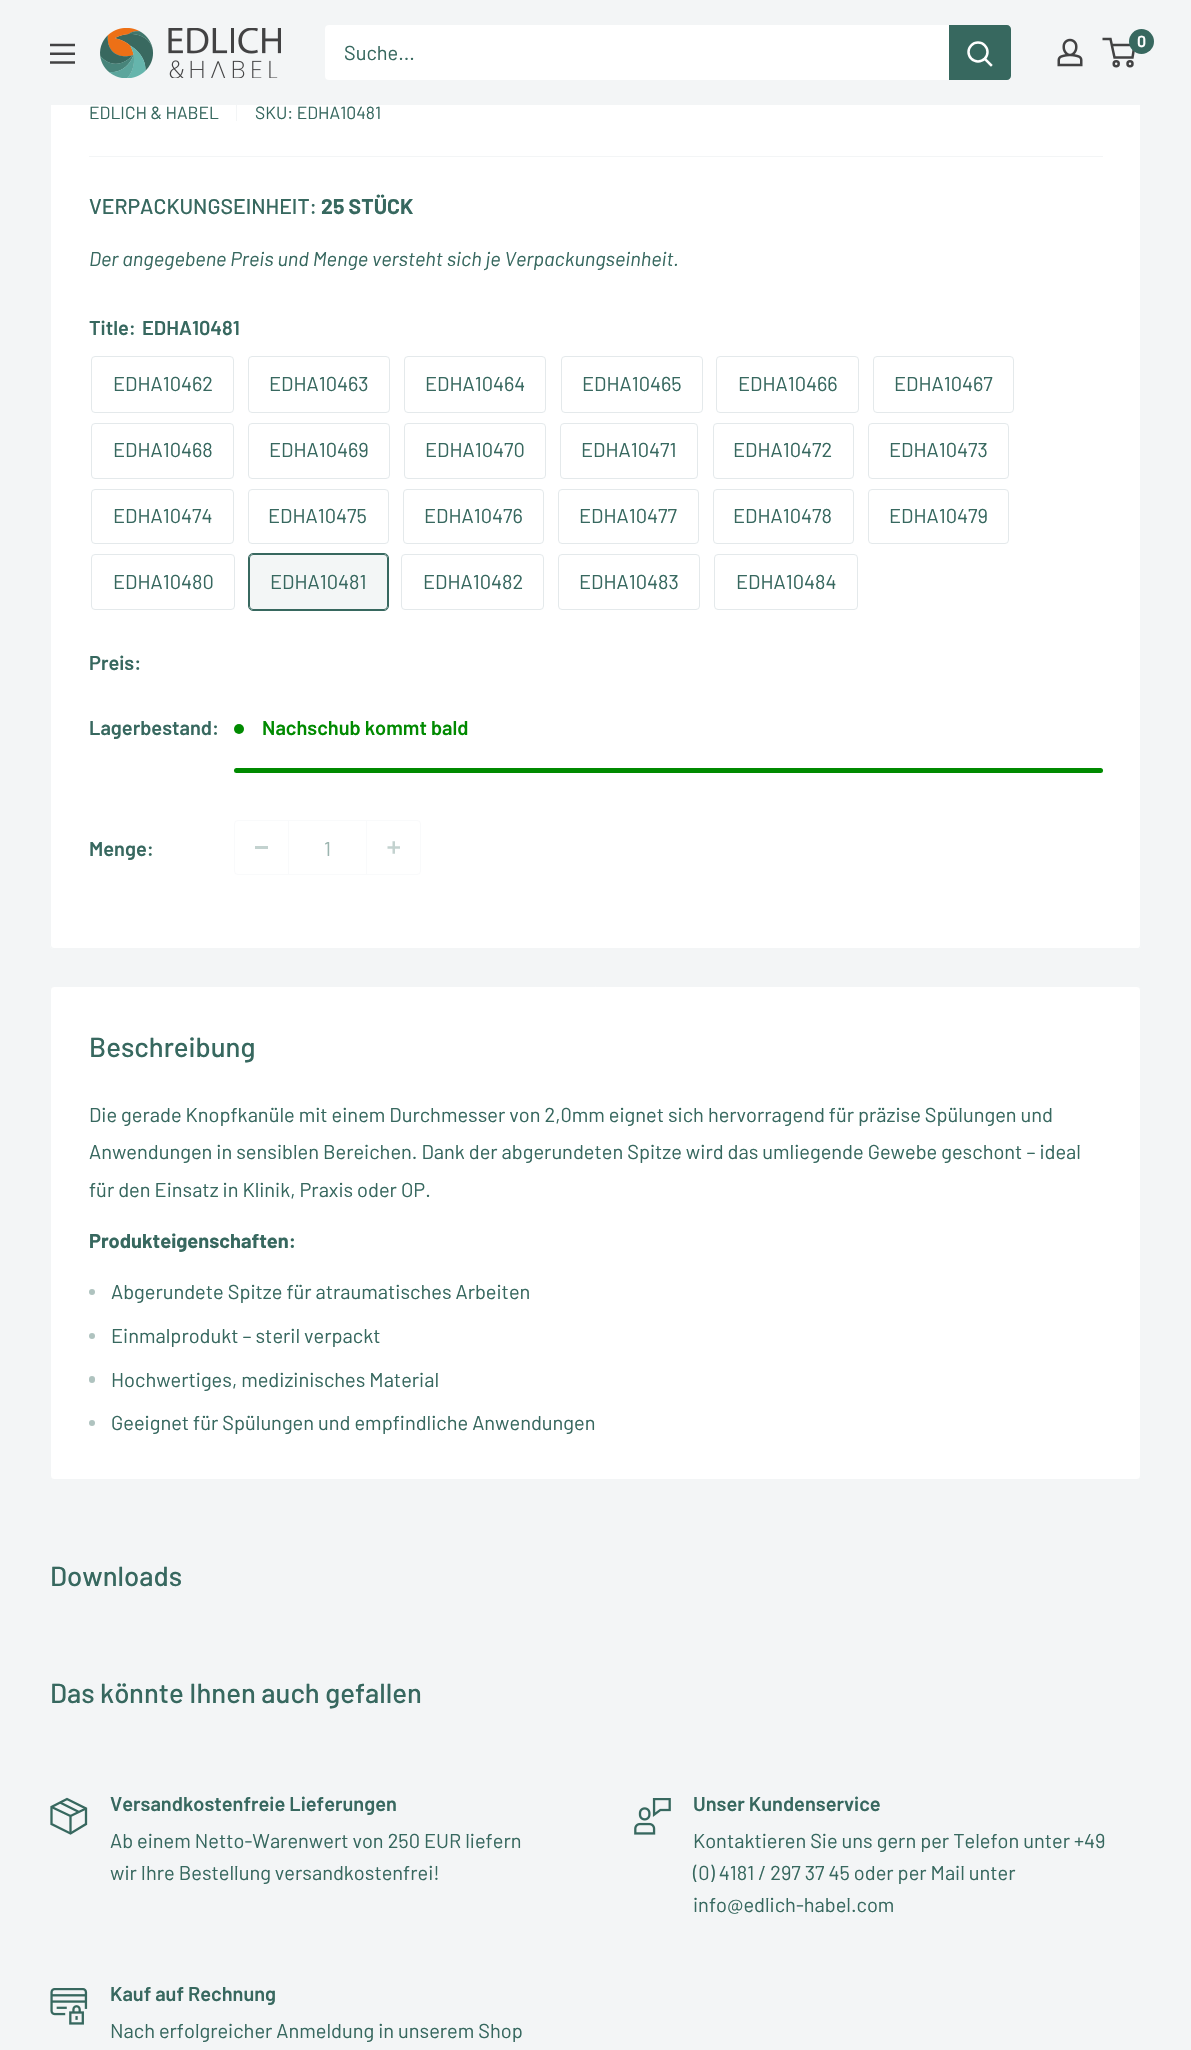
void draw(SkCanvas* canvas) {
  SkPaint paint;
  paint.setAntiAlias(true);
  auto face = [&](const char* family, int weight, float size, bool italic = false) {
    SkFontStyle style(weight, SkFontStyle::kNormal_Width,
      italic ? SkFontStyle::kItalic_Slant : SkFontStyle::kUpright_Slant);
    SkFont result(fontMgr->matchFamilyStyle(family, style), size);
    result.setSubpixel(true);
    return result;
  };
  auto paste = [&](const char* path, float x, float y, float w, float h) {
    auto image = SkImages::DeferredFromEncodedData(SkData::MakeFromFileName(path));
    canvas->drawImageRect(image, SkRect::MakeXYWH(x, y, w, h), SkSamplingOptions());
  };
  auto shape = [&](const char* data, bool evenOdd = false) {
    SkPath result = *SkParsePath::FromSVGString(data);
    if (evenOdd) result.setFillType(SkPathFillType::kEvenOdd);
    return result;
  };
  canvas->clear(0xfff3f5f6);
  paint.setColor(0xffffffff);
  canvas->drawRoundRect(SkRect::MakeXYWH(50, 28, 1091, 921), 4, 4, paint);
  paint.setColor(0xfff3f5f6);
  canvas->drawPath(shape("M54 28H1138C1140 28 1141 29 1141 31V945C1141 947 1140 949 1138 949H54C52 949 50 947 50 945V31C50 29 52 28 54 28ZM54 28H1138C1139 28 1140 29 1140 31V945C1140 946 1139 948 1138 948H54C52 948 51 946 51 945V31C51 29 52 28 54 28Z", true), paint);
  canvas->drawRect(SkRect::MakeXYWH(51, 28, 1089, 77), paint);
  paste("img/1.png", 100, 28, 181, 50);
  paste("img/2.png", 1057, 38, 26, 29);
  paint.setStroke(true);
  paint.setStrokeWidth(2.5f);
  paint.setColor(0xff424243);
  canvas->drawCircle(1116.2f, 63.8f, 2.5f, paint);
  canvas->drawCircle(1130, 63.8f, 2.5f, paint);
  canvas->drawPath(shape("M1111.5 45H1134.5L1132.5 57.5H1114.5L1110.5 39H1102.5"), paint);
  paint.setStroke(false);
  paint.setColor(0xff37685f);
  canvas->drawCircle(1141.5f, 41.5f, 12.5f, paint);
  paste("img/3.png", 50, 43, 25, 21);
  paint.setColor(0xffffffff);
  canvas->drawRoundRect(SkRect::MakeXYWH(325, 25, 686, 55), 4, 4, paint);
  paint.setColor(0xff37685f);
  canvas->drawPath(shape("M949 25H1007C1009 25 1011 27 1011 29V76C1011 78 1009 80 1007 80H949Z"), paint);
  paint.setStroke(true);
  paint.setStrokeCap(SkPaint::kSquare_Cap);
  paint.setColor(0xffffffff);
  canvas->drawPath(shape("M991 65L985 59"), paint);
  paint.setStrokeCap(SkPaint::kButt_Cap);
  canvas->drawCircle(978, 52, 9.5f, paint);
  paint.setStroke(false);
  paint.setColor(0xfff3f5f6);
  canvas->drawRect(SkRect::MakeXYWH(236, 105, 1, 16), paint);
  canvas->drawRect(SkRect::MakeXYWH(89, 156, 1014, 1), paint);
  paint.setStroke(true);
  paint.setStrokeWidth(1);
  paint.setColor(0xffe4e9eb);
  canvas->drawRoundRect(SkRect::MakeXYWH(91.5f, 356.5f, 142, 56), 3.5f, 3.5f, paint);
  canvas->drawRoundRect(SkRect::MakeXYWH(248.5f, 356.5f, 141, 56), 3.5f, 3.5f, paint);
  canvas->drawRoundRect(SkRect::MakeXYWH(404.5f, 356.5f, 141, 56), 3.5f, 3.5f, paint);
  canvas->drawRoundRect(SkRect::MakeXYWH(561.5f, 356.5f, 141, 56), 3.5f, 3.5f, paint);
  canvas->drawRoundRect(SkRect::MakeXYWH(716.5f, 356.5f, 142, 56), 3.5f, 3.5f, paint);
  canvas->drawRoundRect(SkRect::MakeXYWH(873.5f, 356.5f, 140, 56), 3.5f, 3.5f, paint);
  canvas->drawRoundRect(SkRect::MakeXYWH(91.5f, 423.5f, 142, 55), 3.5f, 3.5f, paint);
  canvas->drawRoundRect(SkRect::MakeXYWH(248.5f, 423.5f, 141, 55), 3.5f, 3.5f, paint);
  canvas->drawRoundRect(SkRect::MakeXYWH(404.5f, 423.5f, 141, 55), 3.5f, 3.5f, paint);
  canvas->drawRoundRect(SkRect::MakeXYWH(560.5f, 423.5f, 137, 55), 3.5f, 3.5f, paint);
  canvas->drawRoundRect(SkRect::MakeXYWH(713.5f, 423.5f, 140, 55), 3.5f, 3.5f, paint);
  canvas->drawRoundRect(SkRect::MakeXYWH(868.5f, 423.5f, 140, 55), 3.5f, 3.5f, paint);
  canvas->drawRoundRect(SkRect::MakeXYWH(91.5f, 489.5f, 142, 54), 3.5f, 3.5f, paint);
  canvas->drawRoundRect(SkRect::MakeXYWH(248.5f, 489.5f, 140, 54), 3.5f, 3.5f, paint);
  canvas->drawRoundRect(SkRect::MakeXYWH(403.5f, 489.5f, 140, 54), 3.5f, 3.5f, paint);
  canvas->drawRoundRect(SkRect::MakeXYWH(558.5f, 489.5f, 140, 54), 3.5f, 3.5f, paint);
  canvas->drawRoundRect(SkRect::MakeXYWH(713.5f, 489.5f, 140, 54), 3.5f, 3.5f, paint);
  canvas->drawRoundRect(SkRect::MakeXYWH(868.5f, 489.5f, 140, 54), 3.5f, 3.5f, paint);
  canvas->drawRoundRect(SkRect::MakeXYWH(91.5f, 554.5f, 143, 55), 3.5f, 3.5f, paint);
  paint.setColor(0xff37685f);
  canvas->drawRoundRect(SkRect::MakeXYWH(248.5f, 553.5f, 140, 57), 4.5f, 4.5f, paint);
  paint.setStroke(false);
  paint.setColor(0x0f37685f);
  canvas->drawRect(SkRect::MakeXYWH(249, 554, 139, 56), paint);
  paint.setStroke(true);
  paint.setColor(0xff37685f);
  canvas->drawRoundRect(SkRect::MakeXYWH(249.5f, 554.5f, 138, 55), 3.5f, 3.5f, paint);
  paint.setColor(0xffe4e9eb);
  canvas->drawRoundRect(SkRect::MakeXYWH(401.5f, 554.5f, 142, 55), 3.5f, 3.5f, paint);
  canvas->drawRoundRect(SkRect::MakeXYWH(558.5f, 554.5f, 141, 55), 3.5f, 3.5f, paint);
  canvas->drawRoundRect(SkRect::MakeXYWH(714.5f, 554.5f, 143, 55), 3.5f, 3.5f, paint);
  paint.setStroke(false);
  paint.setColor(0xff008a00);
  canvas->drawCircle(239, 729, 5, paint);
  canvas->drawRoundRect(SkRect::MakeXYWH(234, 768, 869, 5), 2.5f, 2.5f, paint);
  paint.setStroke(true);
  paint.setColor(0xfff9fafb);
  canvas->drawRoundRect(SkRect::MakeXYWH(234.5f, 820.5f, 186, 54), 3.5f, 3.5f, paint);
  paint.setStroke(false);
  {
    const struct { float x, y, w, h; SkColor color; } items[] = {
      {255, 846, 13, 3, 0xffc3d2cf},
      {366, 821, 1, 53, 0xfff9fafb},
      {288, 821, 1, 53, 0xfff9fafb},
    };
    for (auto [x, y, w, h, color] : items) {
      paint.setColor(color);
      canvas->drawRect(SkRect::MakeXYWH(x, y, w, h), paint);
    }
  }
  paste("img/4.png", 387, 841, 13, 13);
  paint.setColor(0xffffffff);
  canvas->drawRoundRect(SkRect::MakeXYWH(50.5f, 986.5f, 1090, 493), 3.5f, 3.5f, paint);
  paint.setStroke(true);
  paint.setColor(0xfff3f5f6);
  canvas->drawRoundRect(SkRect::MakeXYWH(50.5f, 986.5f, 1090, 493), 3.5f, 3.5f, paint);
  paint.setStroke(false);
  paint.setColor(0xffafc3bf);
  canvas->drawCircle(92, 1292, 3, paint);
  canvas->drawCircle(92, 1336, 3, paint);
  canvas->drawRoundRect(SkRect::MakeXYWH(89, 1376, 6, 7), 3, 3, paint);
  canvas->drawCircle(92, 1423, 3, paint);
  paint.setStroke(true);
  paint.setStrokeWidth(2.3f);
  paint.setColor(0xff37685f);
  canvas->drawPath(shape("M60 1802.5L79 1812M86 1808.5L70.5 1816L51.5 1807M70.5 1816V1833.5"), paint);
  paint.setStrokeCap(SkPaint::kSquare_Cap);
  canvas->drawPath(shape("M86 1808.5V1824L70.5 1833.5L51.5 1824V1807L67 1799Z"), paint);
  paste("img/5.png", 634, 1798, 37, 37);
  paste("img/6.png", 50, 1988, 38, 37);
  auto f0 = face("Barlow", 600, 16);
  paint.setStroke(false);
  paint.setColor(0xffffffff);
  canvas->drawString("0", 1137, 47, f0, paint);
  auto f1 = face("Barlow", 400, 20);
  paint.setColor(0xff37685f);
  canvas->drawString("Suche...", 344, 60, f1, paint);
  auto f2 = face("Barlow", 400, 17.5f);
  canvas->drawString("EDLICH & HABEL", 89, 119, f2, paint);
  canvas->drawString("SKU: EDHA10481", 255, 119, f2, paint);
  auto f3 = face("Barlow", 500, 21.25f);
  canvas->drawString("VERPACKUNGSEINHEIT:", 89, 214, f3, paint);
  auto f4 = face("Barlow", 700, 21.25f);
  canvas->drawString("25 STÜCK", 321, 214, f4, paint);
  auto f5 = face("Barlow", 400, 20, true);
  canvas->drawString("Der angegebene Preis und Menge versteht sich je Verpackungseinheit.", 89, 266, f5, paint);
  auto f6 = face("Barlow", 600, 20);
  canvas->drawString("Title:", 89, 335, f6, paint);
  canvas->drawString("EDHA10481", 142, 335, f6, paint);
  {
    const struct { const char* s; float x, y; } items[] = {
      {"EDHA10462", 113, 391},
      {"EDHA10463", 269, 391},
      {"EDHA10464", 425, 391},
      {"EDHA10465", 582, 391},
      {"EDHA10466", 738, 391},
      {"EDHA10467", 894, 391},
      {"EDHA10468", 113, 457},
      {"EDHA10469", 269, 457},
      {"EDHA10470", 425, 457},
      {"EDHA10471", 581, 457},
      {"EDHA10472", 733, 457},
      {"EDHA10473", 889, 457},
      {"EDHA10474", 113, 523},
      {"EDHA10475", 268, 523},
      {"EDHA10476", 424, 523},
      {"EDHA10477", 579, 523},
      {"EDHA10478", 733, 523},
      {"EDHA10479", 889, 523},
      {"EDHA10480", 113, 589},
      {"EDHA10481", 270, 589},
      {"EDHA10482", 423, 589},
      {"EDHA10483", 579, 589},
      {"EDHA10484", 736, 589},
    };
    for (auto [s, x, y] : items) {
      canvas->drawString(s, x, y, f1, paint);
    }
  }
  canvas->drawString("Preis:", 89, 670, f6, paint);
  canvas->drawString("Lagerbestand:", 89, 735, f6, paint);
  paint.setColor(0xff008a00);
  canvas->drawString("Nachschub kommt bald", 262, 735, f6, paint);
  paint.setColor(0xff37685f);
  canvas->drawString("Menge:", 89, 856, f6, paint);
  paint.setColor(0xff9bb4af);
  canvas->drawString("1", 324, 856, f1, paint);
  auto f7 = face("Barlow", 500, 27.5f);
  paint.setColor(0xff37685f);
  canvas->drawString("Beschreibung", 89, 1057, f7, paint);
  {
    const struct { const char* s; float x, y; } items[] = {
      {"Die gerade Knopfkanüle mit einem Durchmesser von 2,0 mm eignet sich hervorragend für präzise Spülungen und", 89, 1122},
      {"Anwendungen in sensiblen Bereichen. Dank der abgerundeten Spitze wird das umliegende Gewebe geschont – ideal", 89, 1159},
      {"für den Einsatz in Klinik, Praxis oder OP.", 89, 1197},
    };
    for (auto [s, x, y] : items) {
      canvas->drawString(s, x, y, f1, paint);
    }
  }
  auto f8 = face("Barlow", 700, 20);
  canvas->drawString("Produkteigenschaften:", 89, 1248, f8, paint);
  {
    const struct { const char* s; float x, y; } items[] = {
      {"Abgerundete Spitze für atraumatisches Arbeiten", 111, 1299},
      {"Einmalprodukt – steril verpackt", 111, 1343},
      {"Hochwertiges, medizinisches Material", 111, 1387},
      {"Geeignet für Spülungen und empfindliche Anwendungen", 111, 1430},
    };
    for (auto [s, x, y] : items) {
      canvas->drawString(s, x, y, f1, paint);
    }
  }
  canvas->drawString("Downloads", 50, 1586, f7, paint);
  canvas->drawString("Das könnte Ihnen auch gefallen", 50, 1703, f7, paint);
  canvas->drawString("Versandkostenfreie Lieferungen", 110, 1811, f6, paint);
  canvas->drawString("Ab einem Netto-Warenwert von 250 EUR liefern", 110, 1848, f1, paint);
  canvas->drawString("wir Ihre Bestellung versandkostenfrei!", 110, 1880, f1, paint);
  canvas->drawString("Unser Kundenservice", 693, 1811, f6, paint);
  {
    const struct { const char* s; float x, y; } items[] = {
      {"Kontaktieren Sie uns gern per Telefon unter +49", 693, 1848},
      {"(0) 4181 / 297 37 45 oder per Mail unter", 693, 1880},
      {"info@edlich-habel.com", 693, 1912},
    };
    for (auto [s, x, y] : items) {
      canvas->drawString(s, x, y, f1, paint);
    }
  }
  canvas->drawString("Kauf auf Rechnung", 110, 2001, f6, paint);
  canvas->drawString("Nach erfolgreicher Anmeldung in unserem Shop", 110, 2038, f1, paint);
}
